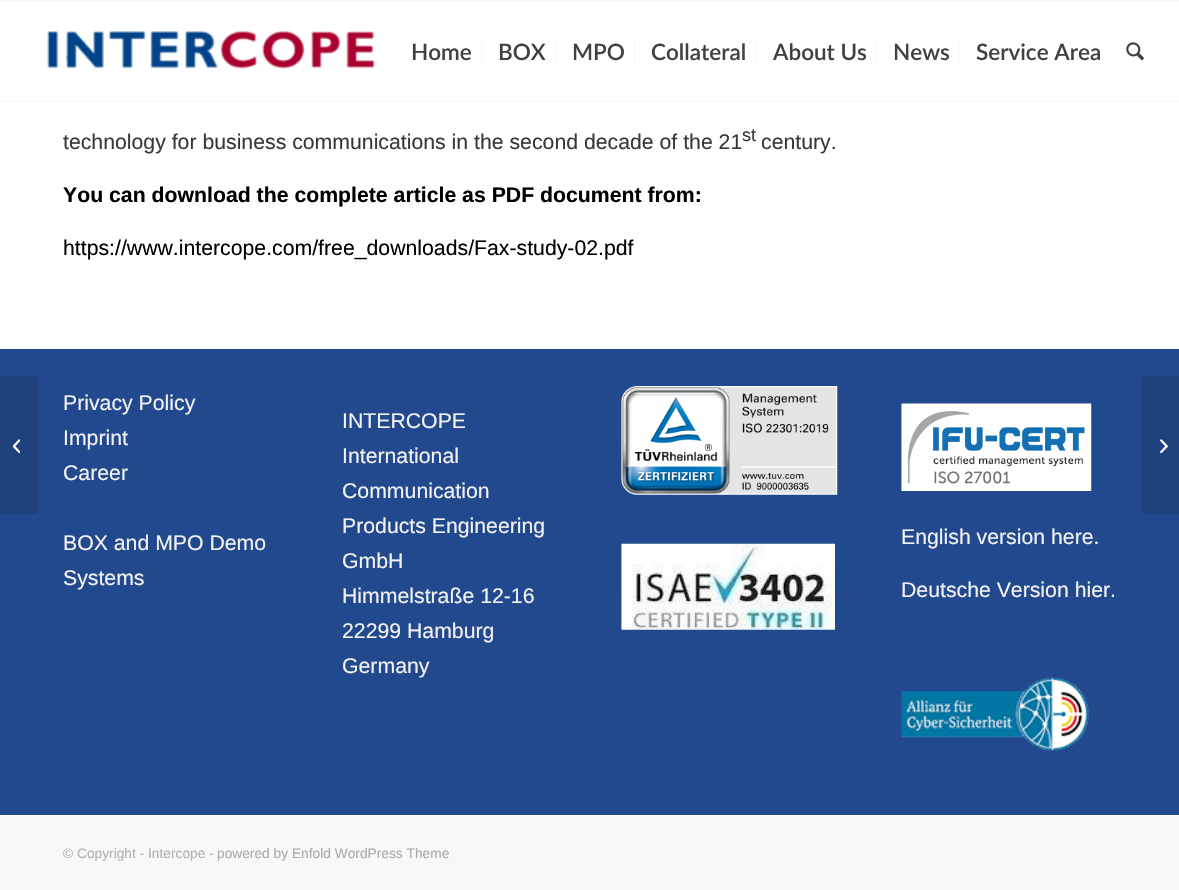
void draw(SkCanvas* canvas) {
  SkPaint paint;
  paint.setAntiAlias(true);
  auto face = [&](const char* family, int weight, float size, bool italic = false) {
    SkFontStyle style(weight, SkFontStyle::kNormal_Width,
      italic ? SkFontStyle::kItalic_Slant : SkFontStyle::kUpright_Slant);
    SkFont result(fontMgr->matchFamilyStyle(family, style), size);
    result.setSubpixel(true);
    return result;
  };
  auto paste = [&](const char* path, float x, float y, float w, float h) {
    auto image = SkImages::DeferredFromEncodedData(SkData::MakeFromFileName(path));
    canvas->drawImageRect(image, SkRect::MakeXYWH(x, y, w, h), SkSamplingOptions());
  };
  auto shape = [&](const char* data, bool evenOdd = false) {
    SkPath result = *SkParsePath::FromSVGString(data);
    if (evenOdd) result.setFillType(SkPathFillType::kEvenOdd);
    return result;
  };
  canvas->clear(0xffffffff);
  paint.setColor(0xfff8f8f8);
  canvas->drawRect(SkRect::MakeXYWH(0, 0, 1179, 1), paint);
  canvas->drawRect(SkRect::MakeXYWH(0, 101, 1179, 1), paint);
  paste("img/1.png", 47, 31, 328, 38);
  {
    const struct { float x, y, w, h; SkColor color; } items[] = {
      {481, 38, 1, 27, 0xfff8f8f8},
      {555, 38, 1, 27, 0xfff8f8f8},
      {634, 38, 1, 27, 0xfff8f8f8},
      {755, 38, 1, 27, 0xfff8f8f8},
      {875, 38, 1, 27, 0xfff8f8f8},
      {959, 38, 1, 27, 0xfff8f8f8},
    };
    for (auto [x, y, w, h, color] : items) {
      paint.setColor(color);
      canvas->drawRect(SkRect::MakeXYWH(x, y, w, h), paint);
    }
  }
  paste("img/2.png", 1126, 42, 18, 19);
  paint.setColor(0xff22498d);
  canvas->drawRect(SkRect::MakeXYWH(0, 349, 1179, 466), paint);
  paint.setColor(0xff1f427f);
  canvas->drawPath(shape("M0 376H34C37 376 39 378 39 381V509C39 512 37 514 34 514H0Z"), paint);
  paste("img/3.png", 13, 439, 7, 15);
  paint.setColor(0xfffcfcfc);
  canvas->drawRect(SkRect::MakeXYWH(0, 348, 1179, 1), paint);
  paste("img/4.png", 621, 386, 217, 109);
  paste("img/5.png", 621, 543, 214, 87);
  paste("img/6.png", 901, 403, 191, 88);
  paste("img/7.png", 901, 677, 188, 74);
  paint.setColor(0xfff8f8f8);
  canvas->drawRect(SkRect::MakeXYWH(0, 815, 1179, 75), paint);
  paint.setColor(0xff1f427f);
  canvas->drawPath(shape("M1146 376H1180V514H1146C1143 514 1141 512 1141 509V381C1141 378 1143 376 1146 376Z"), paint);
  paste("img/8.png", 1160, 439, 8, 15);
  auto f0 = face("Lato", 600, 22.5f);
  paint.setColor(0xff424142);
  {
    const struct { const char* s; float x, y; } items[] = {
      {"Home", 411, 60},
      {"BOX", 498, 60},
      {"MPO", 572, 60},
      {"Collateral", 651, 60},
      {"About Us", 773, 60},
      {"News", 893, 60},
      {"Service Area", 976, 60},
    };
    for (auto [s, x, y] : items) {
      canvas->drawString(s, x, y, f0, paint);
    }
  }
  auto f1 = face("Liberation Sans", 400, 21.25f);
  paint.setColor(0xff383838);
  canvas->drawString("technology for business communications in the second decade of the 21", 63, 149, f1, paint);
  auto f2 = face("Liberation Sans", 400, 18);
  canvas->drawString("st", 742, 141, f2, paint);
  canvas->drawString("century.", 761, 149, f1, paint);
  auto f3 = face("Liberation Sans", 700, 21.25f);
  paint.setColor(0xff000000);
  canvas->drawString("You can download the complete article as PDF document from:", 63, 202, f3, paint);
  canvas->drawString("https://www.intercope.com/free_downloads/Fax-study-02.pdf", 63, 255, f1, paint);
  paint.setColor(0xfff2f2f2);
  {
    const struct { const char* s; float x, y; } items[] = {
      {"Privacy Policy", 63, 410},
      {"Imprint", 63, 445},
      {"Career", 63, 480},
      {"BOX and MPO Demo", 63, 550},
      {"Systems", 63, 585},
      {"INTERCOPE", 342, 428},
      {"International", 342, 463},
      {"Communication", 342, 498},
      {"Products Engineering", 342, 533},
      {"GmbH", 342, 568},
      {"Himmelstraße 12-16", 342, 603},
      {"22299 Hamburg", 342, 638},
      {"Germany", 342, 673},
      {"English version here.", 901, 544},
      {"Deutsche Version hier.", 901, 597},
    };
    for (auto [s, x, y] : items) {
      canvas->drawString(s, x, y, f1, paint);
    }
  }
  auto f4 = face("Liberation Sans", 400, 13.75f);
  paint.setColor(0xffb0b0b0);
  canvas->drawString("© Copyright - Intercope -", 63, 858, f4, paint);
  paint.setColor(0xffaaaaaa);
  canvas->drawString("powered by Enfold WordPress Theme", 217, 858, f4, paint);
}
